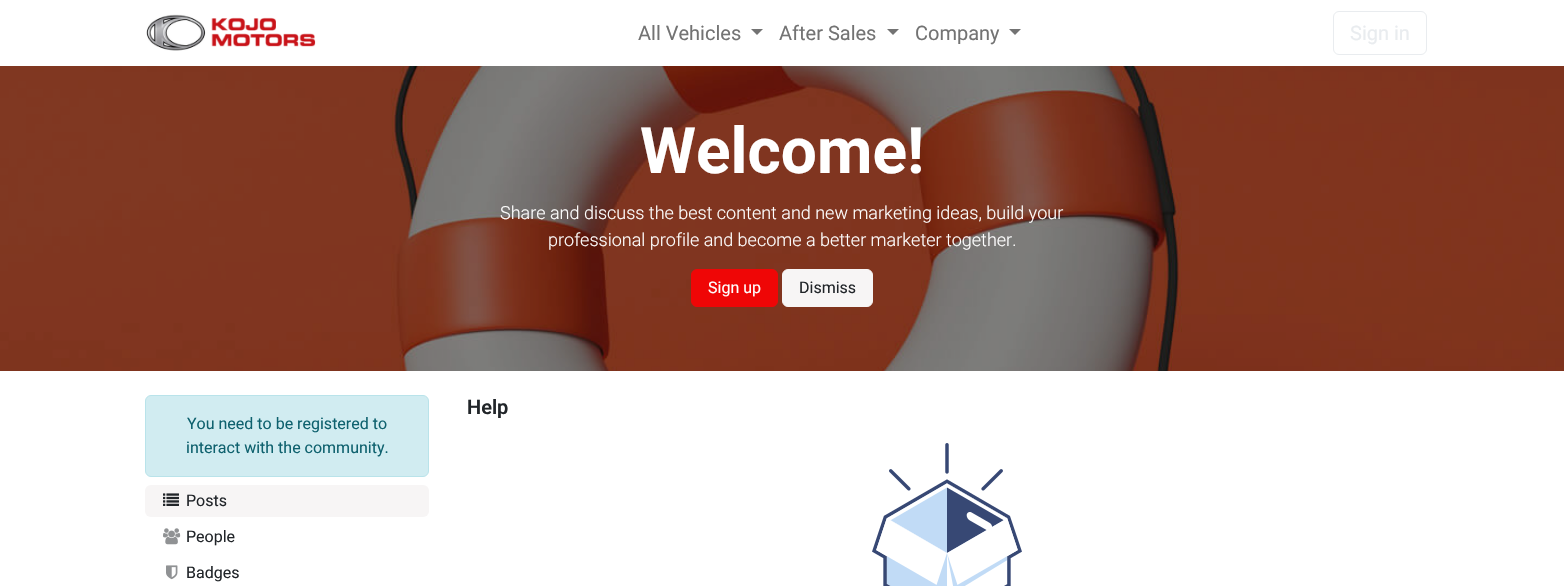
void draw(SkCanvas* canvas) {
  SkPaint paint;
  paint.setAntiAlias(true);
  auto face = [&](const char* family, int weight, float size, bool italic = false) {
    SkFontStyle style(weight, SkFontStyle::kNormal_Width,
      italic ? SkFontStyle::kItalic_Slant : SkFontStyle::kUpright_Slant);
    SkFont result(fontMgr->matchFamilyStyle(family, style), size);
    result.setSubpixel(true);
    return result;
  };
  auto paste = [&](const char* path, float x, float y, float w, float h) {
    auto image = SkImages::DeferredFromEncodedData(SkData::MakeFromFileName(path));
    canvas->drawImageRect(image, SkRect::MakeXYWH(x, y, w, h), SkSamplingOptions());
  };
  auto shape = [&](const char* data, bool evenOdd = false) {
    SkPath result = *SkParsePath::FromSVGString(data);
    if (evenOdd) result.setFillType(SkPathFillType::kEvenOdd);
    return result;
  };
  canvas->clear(0xffffffff);
  paste("img/1.png", 146, 14, 170, 37);
  paint.setColor(0xff737373);
  canvas->drawPath(shape("M751 29H763L757 35Z"), paint);
  canvas->drawPath(shape("M887 29H899L893 35Z"), paint);
  canvas->drawPath(shape("M1009 29H1021L1015 35Z"), paint);
  paint.setStroke(true);
  paint.setStrokeWidth(1);
  paint.setColor(0xffe9ecef);
  canvas->drawRoundRect(SkRect::MakeXYWH(1333.5f, 11.5f, 93, 43), 5.5f, 5.5f, paint);
  paste("img/2.png", 0, 66, 1564, 305);
  paint.setStroke(false);
  paint.setColor(0xffef0606);
  canvas->drawRoundRect(SkRect::MakeXYWH(691.5f, 269.5f, 86, 37), 5.5f, 5.5f, paint);
  paint.setStroke(true);
  canvas->drawRoundRect(SkRect::MakeXYWH(691.5f, 269.5f, 86, 37), 5.5f, 5.5f, paint);
  paint.setStroke(false);
  paint.setColor(0xfff7f5f5);
  canvas->drawRoundRect(SkRect::MakeXYWH(782.5f, 269.5f, 90, 37), 5.5f, 5.5f, paint);
  paint.setStroke(true);
  canvas->drawRoundRect(SkRect::MakeXYWH(782.5f, 269.5f, 90, 37), 5.5f, 5.5f, paint);
  paste("img/3.png", 872, 443, 150, 143);
  paint.setStroke(false);
  paint.setColor(0xffd1ecf1);
  canvas->drawRoundRect(SkRect::MakeXYWH(145.5f, 395.5f, 283, 81), 5.5f, 5.5f, paint);
  paint.setStroke(true);
  paint.setColor(0xffb9e3ea);
  canvas->drawRoundRect(SkRect::MakeXYWH(145.5f, 395.5f, 283, 81), 5.5f, 5.5f, paint);
  paint.setStroke(false);
  paint.setColor(0xfff7f5f5);
  canvas->drawRoundRect(SkRect::MakeXYWH(145, 485, 284, 32), 6, 6, paint);
  paste("img/4.png", 163, 493, 16, 13);
  paste("img/5.png", 163, 528, 18, 17);
  paste("img/6.png", 166, 565, 12, 15);
  auto f0 = face("Roboto", 400, 20);
  paint.setColor(0xff737373);
  {
    const struct { const char* s; float x, y; } items[] = {
      {"All Vehicles", 638, 40},
      {"After Sales", 779, 40},
      {"Company", 915, 40},
    };
    for (auto [s, x, y] : items) {
      canvas->drawString(s, x, y, f0, paint);
    }
  }
  paint.setColor(0xffe9ecef);
  canvas->drawString("Sign in", 1350, 40, f0, paint);
  auto f1 = face("Roboto", 700, 64);
  paint.setColor(0xffffffff);
  canvas->drawString("Welcome!", 640, 173, f1, paint);
  auto f2 = face("Roboto", 300, 18);
  canvas->drawString("Share and discuss the best content and new marketing ideas, build your", 500, 219, f2, paint);
  canvas->drawString("professional profile and become a better marketer together.", 548, 246, f2, paint);
  auto f3 = face("Roboto", 400, 16);
  canvas->drawString("Sign up", 708, 293, f3, paint);
  paint.setColor(0xff212529);
  canvas->drawString("Dismiss", 799, 293, f3, paint);
  auto f4 = face("Roboto", 600, 20);
  canvas->drawString("Help", 467, 414, f4, paint);
  paint.setColor(0xff0e616e);
  canvas->drawString("You need to be registered to", 187, 429, f3, paint);
  canvas->drawString("interact with the community.", 186, 453, f3, paint);
  paint.setColor(0xff212529);
  {
    const struct { const char* s; float x, y; } items[] = {
      {"Posts", 186, 506},
      {"People", 186, 542},
      {"Badges", 186, 578},
    };
    for (auto [s, x, y] : items) {
      canvas->drawString(s, x, y, f3, paint);
    }
  }
}
